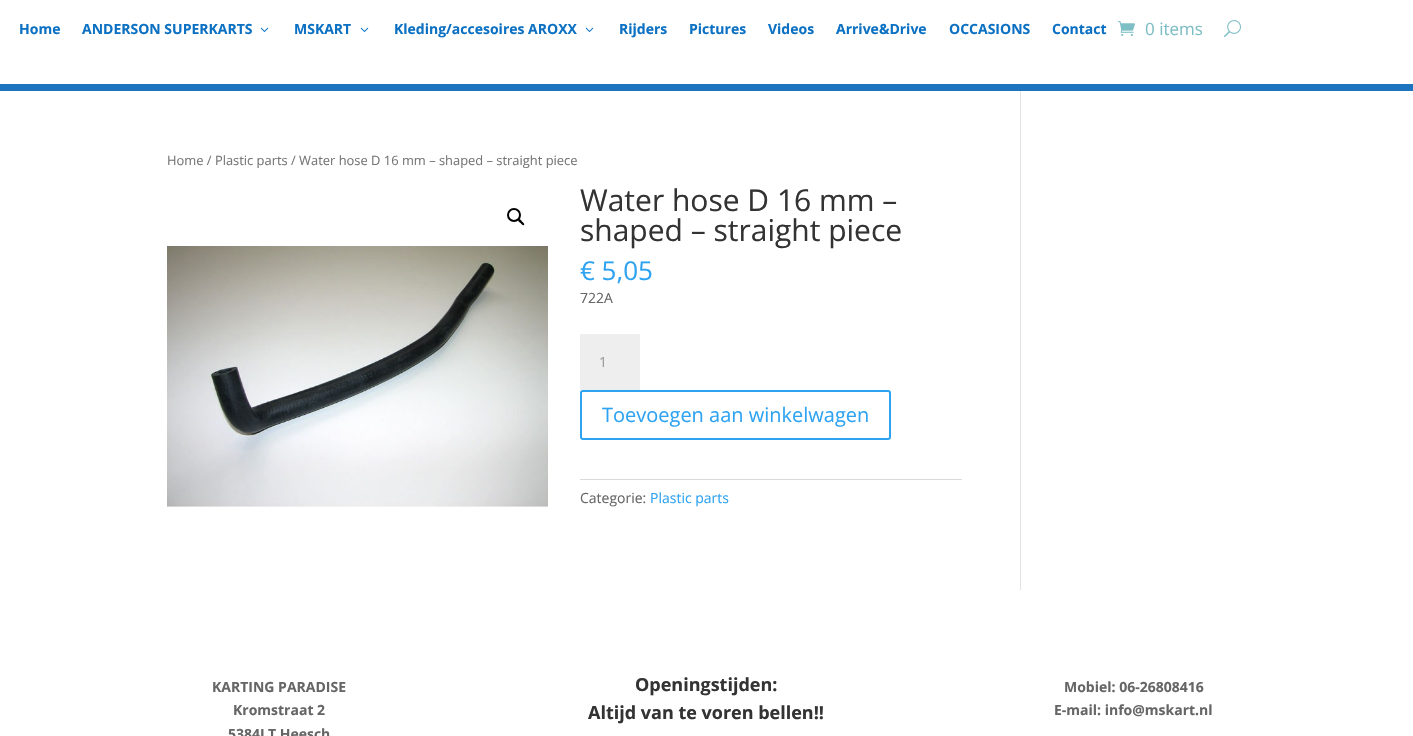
void draw(SkCanvas* canvas) {
  SkPaint paint;
  paint.setAntiAlias(true);
  auto face = [&](const char* family, int weight, float size, bool italic = false) {
    SkFontStyle style(weight, SkFontStyle::kNormal_Width,
      italic ? SkFontStyle::kItalic_Slant : SkFontStyle::kUpright_Slant);
    SkFont result(fontMgr->matchFamilyStyle(family, style), size);
    result.setSubpixel(true);
    return result;
  };
  auto paste = [&](const char* path, float x, float y, float w, float h) {
    auto image = SkImages::DeferredFromEncodedData(SkData::MakeFromFileName(path));
    canvas->drawImageRect(image, SkRect::MakeXYWH(x, y, w, h), SkSamplingOptions());
  };
  auto shape = [&](const char* data, bool evenOdd = false) {
    SkPath result = *SkParsePath::FromSVGString(data);
    if (evenOdd) result.setFillType(SkPathFillType::kEvenOdd);
    return result;
  };
  canvas->clear(0xff1e73be);
  paint.setColor(0xffffffff);
  canvas->drawRect(SkRect::MakeXYWH(0, 0, 1413, 84), paint);
  paste("img/1.png", 260, 27, 9, 5);
  paste("img/1.png", 360, 27, 9, 5);
  paste("img/1.png", 585, 27, 9, 5);
  paste("img/2.png", 1118, 21, 17, 15);
  paste("img/3.png", 1224, 20, 17, 18);
  canvas->drawRect(SkRect::MakeXYWH(0, 91, 1413, 645), paint);
  paint.setStroke(true);
  paint.setStrokeWidth(2);
  paint.setColor(0xff000000);
  canvas->drawCircle(514, 215, 6, paint);
  paint.setStroke(false);
  canvas->drawPath(shape("M518.5 219.5C519.5 218 521.5 221 522 221.5C522.5 222 525 224 524 225C523 226 521 223.5 520.5 223C520 222.5 517 220.5 518.5 219.5Z"), paint);
  paste("img/4.png", 167, 246, 381, 261);
  paint.setColor(0xffeeeeee);
  canvas->drawRect(SkRect::MakeXYWH(580, 334, 60, 56), paint);
  paint.setStroke(true);
  paint.setColor(0xff2ea3f2);
  canvas->drawRoundRect(SkRect::MakeXYWH(581, 391, 309, 48), 2, 2, paint);
  paint.setStroke(false);
  paint.setColor(0xffdadada);
  canvas->drawRect(SkRect::MakeXYWH(580, 479, 382, 1), paint);
  paint.setColor(0xffe2e2e2);
  canvas->drawRect(SkRect::MakeXYWH(1020, 91, 1, 499), paint);
  auto f0 = face("Open Sans", 700, 14);
  paint.setColor(0xff0c71c3);
  {
    const struct { const char* s; float x, y; } items[] = {
      {"Home", 19, 34},
      {"ANDERSON SUPERKARTS", 82, 34},
      {"MSKART", 294, 34},
      {"Kleding/accesoires AROXX", 394, 34},
      {"Rijders", 619, 34},
      {"Pictures", 689, 34},
      {"Videos", 768, 34},
      {"Arrive&Drive", 836, 34},
      {"OCCASIONS", 949, 34},
      {"Contact", 1052, 34},
    };
    for (auto [s, x, y] : items) {
      canvas->drawString(s, x, y, f0, paint);
    }
  }
  auto f1 = face("Open Sans", 400, 17);
  paint.setColor(0xff7ebec5);
  canvas->drawString("0 items", 1145, 35, f1, paint);
  auto f2 = face("Open Sans", 400, 12.9f);
  paint.setColor(0xff767676);
  canvas->drawString("Home / Plastic parts / Water hose D 16 mm – shaped – straight piece", 167, 165, f2, paint);
  auto f3 = face("Open Sans", 400, 30);
  paint.setColor(0xff333333);
  canvas->drawString("Water hose D 16 mm –", 580, 211, f3, paint);
  canvas->drawString("shaped – straight piece", 580, 241, f3, paint);
  auto f4 = face("Open Sans", 400, 26);
  paint.setColor(0xff2ea3f2);
  canvas->drawString("€ 5,05", 580, 280, f4, paint);
  auto f5 = face("Open Sans", 400, 14);
  paint.setColor(0xff666666);
  canvas->drawString("722A", 580, 303, f5, paint);
  paint.setColor(0xff999999);
  canvas->drawString("1", 599, 367, f5, paint);
  auto f6 = face("Open Sans", 400, 20);
  paint.setColor(0xff2ea3f2);
  canvas->drawString("Toevoegen aan winkelwagen", 602, 422, f6, paint);
  paint.setColor(0xff666666);
  canvas->drawString("Categorie:", 580, 503, f5, paint);
  paint.setColor(0xff2ea3f2);
  canvas->drawString("Plastic parts", 650, 503, f5, paint);
  paint.setColor(0xff666666);
  {
    const struct { const char* s; float x, y; } items[] = {
      {"KARTING PARADISE", 212, 692},
      {"Kromstraat 2", 233, 715},
      {"5384LT Heesch", 228, 739},
    };
    for (auto [s, x, y] : items) {
      canvas->drawString(s, x, y, f0, paint);
    }
  }
  auto f7 = face("Open Sans", 700, 18);
  paint.setColor(0xff333333);
  canvas->drawString("Openingstijden:", 635, 691, f7, paint);
  canvas->drawString("Altijd van te voren bellen!!", 588, 719, f7, paint);
  paint.setColor(0xff666666);
  canvas->drawString("Mobiel: 06-26808416", 1064, 692, f0, paint);
  canvas->drawString("E-mail: info@mskart.nl", 1054, 715, f0, paint);
}
